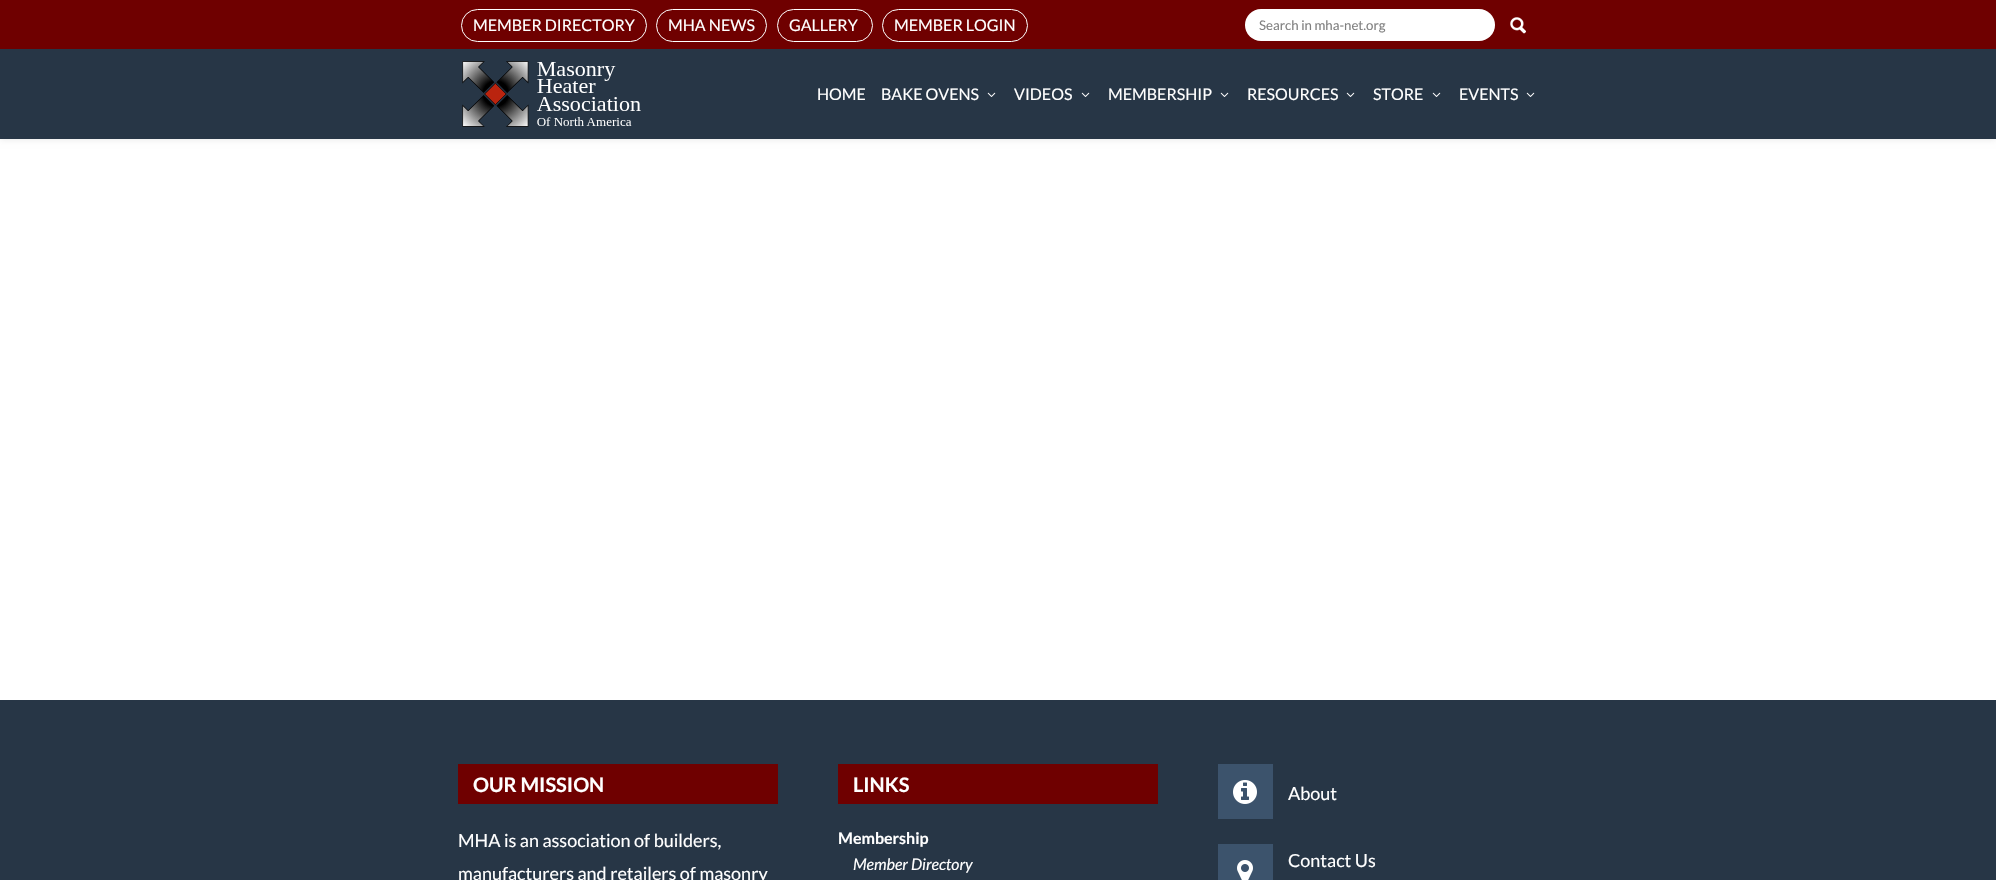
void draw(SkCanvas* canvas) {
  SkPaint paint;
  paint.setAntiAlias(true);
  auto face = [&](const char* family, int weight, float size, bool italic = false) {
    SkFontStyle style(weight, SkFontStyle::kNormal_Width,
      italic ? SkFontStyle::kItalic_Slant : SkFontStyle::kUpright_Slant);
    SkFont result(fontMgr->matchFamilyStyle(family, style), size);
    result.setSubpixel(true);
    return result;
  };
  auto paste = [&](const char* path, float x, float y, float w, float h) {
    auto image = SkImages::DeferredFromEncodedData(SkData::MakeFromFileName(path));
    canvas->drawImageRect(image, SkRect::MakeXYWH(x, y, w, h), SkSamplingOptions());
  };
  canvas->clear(0xffffffff);
  paint.setColor(0x1a000000);
  paint.setMaskFilter(SkMaskFilter::MakeBlur(kNormal_SkBlurStyle, 3.5f));
  canvas->drawRect(SkRect::MakeXYWH(0, 0, 1996, 139), paint);
  paint.setMaskFilter(nullptr);
  paint.setColor(0xff273646);
  canvas->drawRect(SkRect::MakeXYWH(0, 49, 1996, 90), paint);
  paint.setColor(0xff6f0000);
  canvas->drawRect(SkRect::MakeXYWH(0, 0, 1996, 49), paint);
  paint.setStroke(true);
  paint.setStrokeWidth(1);
  paint.setColor(0xffffffff);
  canvas->drawRoundRect(SkRect::MakeXYWH(461.5f, 9.5f, 185, 32), 16, 16, paint);
  canvas->drawRoundRect(SkRect::MakeXYWH(656.5f, 9.5f, 110, 32), 16, 16, paint);
  canvas->drawRoundRect(SkRect::MakeXYWH(777.5f, 9.5f, 95, 32), 16, 16, paint);
  canvas->drawRoundRect(SkRect::MakeXYWH(882.5f, 9.5f, 145, 32), 16, 16, paint);
  paint.setStroke(false);
  canvas->drawRoundRect(SkRect::MakeXYWH(1245, 9, 250, 32), 16, 16, paint);
  paste("img/1.png", 1510, 17, 16, 17);
  paste("img/2.png", 462, 61, 179, 66);
  paste("img/3.png", 987, 92, 9, 5);
  paste("img/3.png", 1081, 92, 9, 5);
  paste("img/3.png", 1220, 92, 9, 5);
  paste("img/3.png", 1346, 92, 9, 5);
  paste("img/3.png", 1432, 92, 9, 5);
  paste("img/3.png", 1526, 92, 9, 5);
  {
    const struct { float x, y, w, h; SkColor color; } items[] = {
      {0, 700, 1996, 180, 0xff273646},
      {458, 764, 320, 40, 0xff6f0000},
      {838, 764, 320, 40, 0xff6f0000},
      {1218, 764, 55, 55, 0xff3c536c},
    };
    for (auto [x, y, w, h, color] : items) {
      paint.setColor(color);
      canvas->drawRect(SkRect::MakeXYWH(x, y, w, h), paint);
    }
  }
  paste("img/4.png", 1233, 780, 24, 24);
  canvas->drawRect(SkRect::MakeXYWH(1218, 844, 55, 36), paint);
  paste("img/5.png", 1237, 860, 16, 20);
  auto f0 = face("Lato", 400, 16);
  paint.setColor(0xffffffff);
  {
    const struct { const char* s; float x, y; } items[] = {
      {"MEMBER DIRECTORY", 473, 31},
      {"MHA NEWS", 668, 31},
      {"GALLERY", 789, 31},
      {"MEMBER LOGIN", 894, 31},
    };
    for (auto [s, x, y] : items) {
      canvas->drawString(s, x, y, f0, paint);
    }
  }
  auto f1 = face("Lato", 400, 13.25f);
  paint.setColor(0xff808080);
  canvas->drawString("Search in mha-net.org", 1259, 30, f1, paint);
  paint.setColor(0xffffffff);
  {
    const struct { const char* s; float x, y; } items[] = {
      {"HOME", 817, 100},
      {"BAKE OVENS", 881, 100},
      {"VIDEOS", 1014, 100},
      {"MEMBERSHIP", 1108, 100},
      {"RESOURCES", 1247, 100},
      {"STORE", 1373, 100},
      {"EVENTS", 1459, 100},
    };
    for (auto [s, x, y] : items) {
      canvas->drawString(s, x, y, f0, paint);
    }
  }
  auto f2 = face("Lato", 700, 20);
  canvas->drawString("OUR MISSION", 473, 792, f2, paint);
  auto f3 = face("Lato", 400, 18);
  canvas->drawString("MHA is an association of builders,", 458, 847, f3, paint);
  canvas->drawString("manufacturers and retailers of masonry", 458, 880, f3, paint);
  canvas->drawString("LINKS", 853, 792, f2, paint);
  auto f4 = face("Lato", 700, 16);
  canvas->drawString("Membership", 838, 844, f4, paint);
  auto f5 = face("Lato", 400, 16, true);
  canvas->drawString("Member Directory", 853, 870, f5, paint);
  canvas->drawString("About", 1288, 800, f3, paint);
  canvas->drawString("Contact Us", 1288, 867, f3, paint);
}
